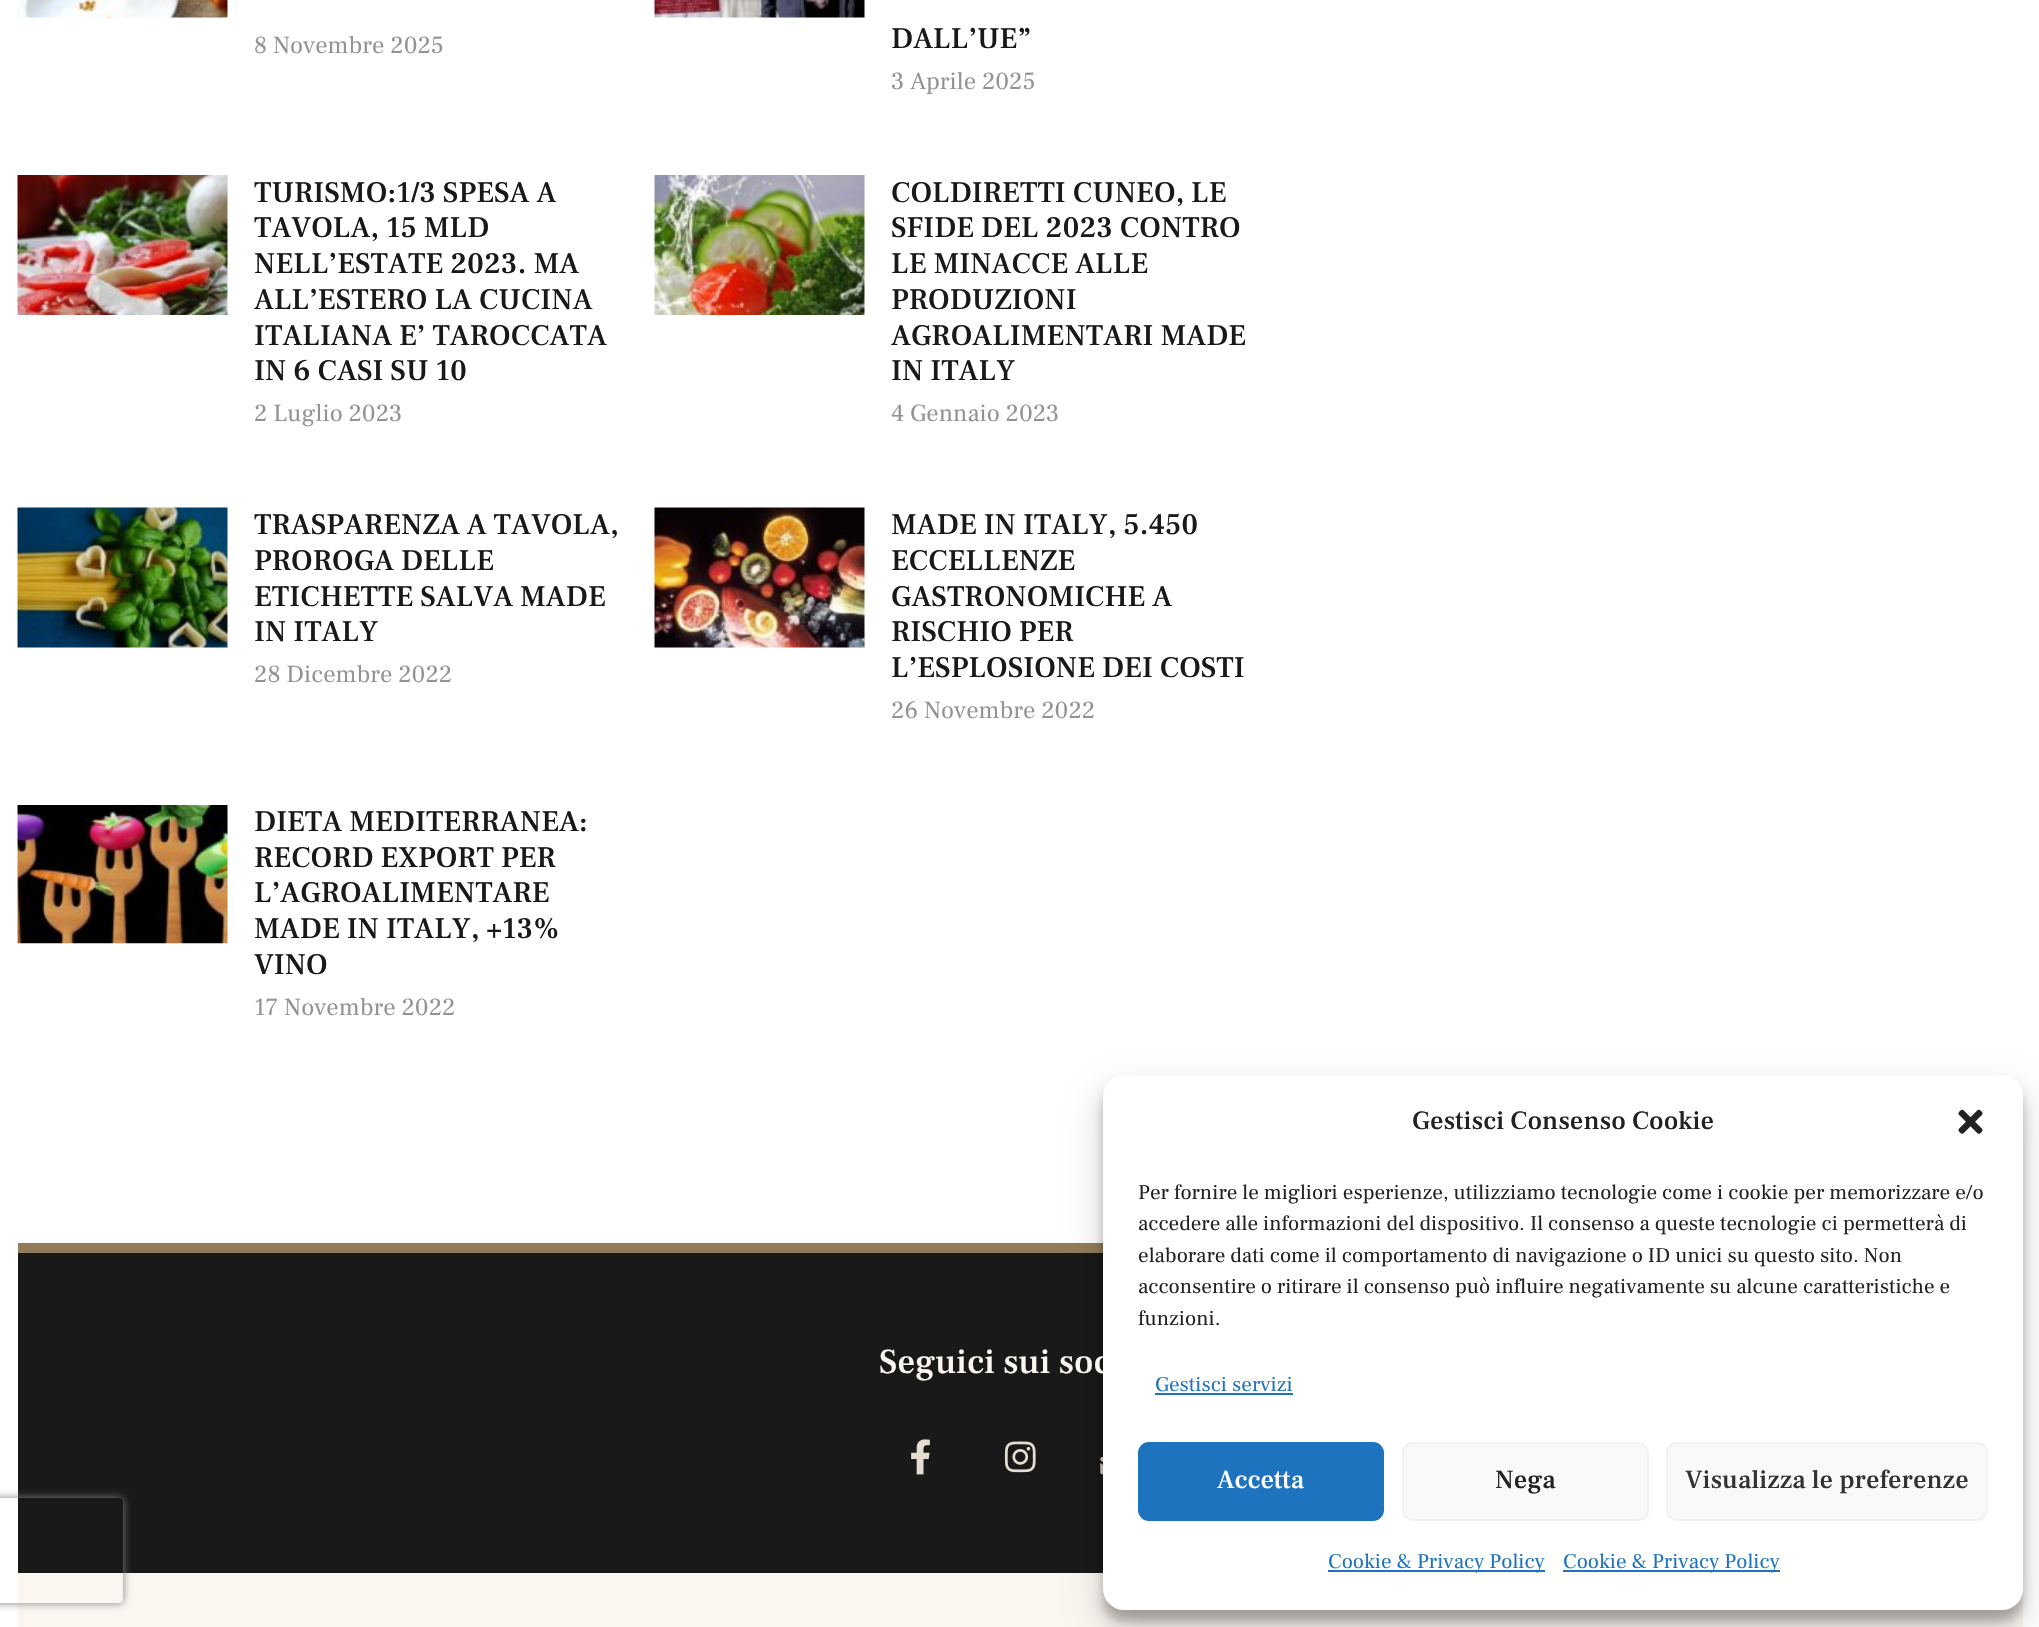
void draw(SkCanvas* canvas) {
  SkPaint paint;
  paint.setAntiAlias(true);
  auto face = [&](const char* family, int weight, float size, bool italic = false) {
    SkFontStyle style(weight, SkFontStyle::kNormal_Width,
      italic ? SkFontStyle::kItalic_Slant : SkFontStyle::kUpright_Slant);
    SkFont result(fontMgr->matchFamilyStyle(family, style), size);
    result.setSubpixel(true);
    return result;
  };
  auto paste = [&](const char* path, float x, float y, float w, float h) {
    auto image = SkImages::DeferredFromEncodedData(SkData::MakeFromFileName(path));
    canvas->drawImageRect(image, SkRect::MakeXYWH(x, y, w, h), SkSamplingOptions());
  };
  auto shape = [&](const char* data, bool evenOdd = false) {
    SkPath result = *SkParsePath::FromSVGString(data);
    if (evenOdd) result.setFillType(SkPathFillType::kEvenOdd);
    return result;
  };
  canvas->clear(0xffffffff);
  paste("img/1.png", 17, 0, 211, 18);
  paste("img/2.png", 654, 0, 211, 18);
  paste("img/3.png", 17, 175, 211, 140);
  paste("img/4.png", 654, 175, 211, 140);
  paste("img/5.png", 17, 507, 211, 141);
  paste("img/6.png", 654, 507, 211, 141);
  paste("img/7.png", 17, 805, 211, 139);
  paint.setColor(0xff191919);
  canvas->drawRect(SkRect::MakeXYWH(18, 1253, 1085, 320), paint);
  paint.setColor(0xff927c59);
  canvas->drawRect(SkRect::MakeXYWH(18, 1243, 1085, 10), paint);
  paste("img/8.png", 911, 1439, 19, 36);
  paste("img/9.png", 1004, 1441, 32, 32);
  paste("img/10.png", 1100, 1456, 3, 19);
  paint.setColor(0xfffbf6ef);
  canvas->drawRect(SkRect::MakeXYWH(18, 1573, 2005, 54), paint);
  canvas->save();
  canvas->clipPath(shape("M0 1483H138V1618H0ZM-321 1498H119C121 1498 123 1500 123 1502V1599C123 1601 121 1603 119 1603H-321C-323 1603-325 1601-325 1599V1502C-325 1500-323 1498-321 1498Z", true), true);
  paint.setColor(0xff808080);
  paint.setMaskFilter(SkMaskFilter::MakeBlur(kNormal_SkBlurStyle, 4.5f));
  canvas->drawRoundRect(SkRect::MakeXYWH(-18, 1498, 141, 105), 4, 4, paint);
  paint.setMaskFilter(nullptr);
  canvas->restore();
  paint.setColor(0x3b000000);
  paint.setMaskFilter(SkMaskFilter::MakeBlur(kNormal_SkBlurStyle, 5));
  canvas->drawRoundRect(SkRect::MakeXYWH(1103, 1085, 920, 536), 21, 21, paint);
  paint.setMaskFilter(nullptr);
  paint.setColor(0x30000000);
  paint.setMaskFilter(SkMaskFilter::MakeBlur(kNormal_SkBlurStyle, 17.5f));
  canvas->drawRoundRect(SkRect::MakeXYWH(1103, 1092, 920, 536), 21, 21, paint);
  paint.setMaskFilter(nullptr);
  auto f0 = face("Frank Ruhl Libre", 400, 24.5f);
  paint.setColor(0xff939393);
  canvas->drawString("8 Novembre 2025", 254, 53, f0, paint);
  auto f1 = face("Frank Ruhl Libre", 500, 29.75f);
  paint.setColor(0xff191919);
  canvas->drawString("DALL’UE”", 891, 48, f1, paint);
  paint.setColor(0xff939393);
  canvas->drawString("3 Aprile 2025", 891, 89, f0, paint);
  paint.setColor(0xff191919);
  {
    const struct { const char* s; float x, y; } items[] = {
      {"TURISMO:1/3 SPESA A", 254, 202},
      {"TAVOLA, 15 MLD", 254, 237},
      {"NELL’ESTATE 2023. MA", 254, 273},
      {"ALL’ESTERO LA CUCINA", 254, 309},
      {"ITALIANA E’ TAROCCATA", 254, 345},
      {"IN 6 CASI SU 10", 254, 380},
    };
    for (auto [s, x, y] : items) {
      canvas->drawString(s, x, y, f1, paint);
    }
  }
  paint.setColor(0xff939393);
  canvas->drawString("2 Luglio 2023", 254, 421, f0, paint);
  paint.setColor(0xff191919);
  {
    const struct { const char* s; float x, y; } items[] = {
      {"COLDIRETTI CUNEO, LE", 891, 202},
      {"SFIDE DEL 2023 CONTRO", 891, 237},
      {"LE MINACCE ALLE", 891, 273},
      {"PRODUZIONI", 891, 309},
      {"AGROALIMENTARI MADE", 891, 345},
      {"IN ITALY", 891, 380},
    };
    for (auto [s, x, y] : items) {
      canvas->drawString(s, x, y, f1, paint);
    }
  }
  paint.setColor(0xff939393);
  canvas->drawString("4 Gennaio 2023", 891, 421, f0, paint);
  paint.setColor(0xff191919);
  {
    const struct { const char* s; float x, y; } items[] = {
      {"TRASPARENZA A TAVOLA,", 254, 534},
      {"PROROGA DELLE", 254, 570},
      {"ETICHETTE SALVA MADE", 254, 606},
      {"IN ITALY", 254, 641},
    };
    for (auto [s, x, y] : items) {
      canvas->drawString(s, x, y, f1, paint);
    }
  }
  paint.setColor(0xff939393);
  canvas->drawString("28 Dicembre 2022", 254, 682, f0, paint);
  paint.setColor(0xff191919);
  {
    const struct { const char* s; float x, y; } items[] = {
      {"MADE IN ITALY, 5.450", 891, 534},
      {"ECCELLENZE", 891, 570},
      {"GASTRONOMICHE A", 891, 606},
      {"RISCHIO PER", 891, 641},
      {"L’ESPLOSIONE DEI COSTI", 891, 677},
    };
    for (auto [s, x, y] : items) {
      canvas->drawString(s, x, y, f1, paint);
    }
  }
  paint.setColor(0xff939393);
  canvas->drawString("26 Novembre 2022", 891, 718, f0, paint);
  paint.setColor(0xff191919);
  {
    const struct { const char* s; float x, y; } items[] = {
      {"DIETA MEDITERRANEA:", 254, 831},
      {"RECORD EXPORT PER", 254, 867},
      {"L’AGROALIMENTARE", 254, 902},
      {"MADE IN ITALY, +13%", 254, 938},
      {"VINO", 254, 974},
    };
    for (auto [s, x, y] : items) {
      canvas->drawString(s, x, y, f1, paint);
    }
  }
  paint.setColor(0xff939393);
  canvas->drawString("17 Novembre 2022", 254, 1015, f0, paint);
  auto f2 = face("Frank Ruhl Libre", 500, 35);
  paint.setColor(0xfffbf6ef);
  canvas->drawString("Seguici sui soc", 879, 1373, f2, paint);
  paint.setColor(0xffffffff);
  canvas->drawRoundRect(SkRect::MakeXYWH(1103, 1075, 920, 535), 21, 21, paint);
  auto f3 = face("Frank Ruhl Libre", 500, 26.25f);
  paint.setColor(0xff222222);
  canvas->drawString("Gestisci Consenso Cookie", 1412, 1129, f3, paint);
  paste("img/11.png", 1958, 1109, 25, 25);
  auto f4 = face("Frank Ruhl Libre", 400, 21);
  {
    const struct { const char* s; float x, y; } items[] = {
      {"Per fornire le migliori esperienze, utilizziamo tecnologie come i cookie per memorizzare e/o", 1138, 1199},
      {"accedere alle informazioni del dispositivo. Il consenso a queste tecnologie ci permetterà di", 1138, 1230},
      {"elaborare dati come il comportamento di navigazione o ID unici su questo sito. Non", 1138, 1262},
      {"acconsentire o ritirare il consenso può influire negativamente su alcune caratteristiche e", 1138, 1293},
      {"funzioni.", 1138, 1325},
    };
    for (auto [s, x, y] : items) {
      canvas->drawString(s, x, y, f4, paint);
    }
  }
  paint.setColor(0xff1e73be);
  canvas->drawString("Gestisci servizi", 1155, 1391, f4, paint);
  canvas->drawRect(SkRect::MakeXYWH(1155, 1393, 138, 2), paint);
  canvas->drawRoundRect(SkRect::MakeXYWH(1139, 1443, 244, 77), 10, 10, paint);
  paint.setStroke(true);
  paint.setStrokeWidth(2);
  canvas->drawRoundRect(SkRect::MakeXYWH(1139, 1443, 244, 77), 10, 10, paint);
  paint.setStroke(false);
  paint.setColor(0xffffffff);
  canvas->drawString("Accetta", 1217, 1488, f3, paint);
  paint.setColor(0xfff9f9f9);
  canvas->drawRoundRect(SkRect::MakeXYWH(1403, 1443, 245, 77), 10, 10, paint);
  paint.setStroke(true);
  paint.setColor(0xfff2f2f2);
  canvas->drawRoundRect(SkRect::MakeXYWH(1403, 1443, 245, 77), 10, 10, paint);
  paint.setStroke(false);
  paint.setColor(0xff222222);
  canvas->drawString("Nega", 1495, 1488, f3, paint);
  paint.setColor(0xfff9f9f9);
  canvas->drawRoundRect(SkRect::MakeXYWH(1667, 1443, 320, 77), 10, 10, paint);
  paint.setStroke(true);
  paint.setColor(0xfff2f2f2);
  canvas->drawRoundRect(SkRect::MakeXYWH(1667, 1443, 320, 77), 10, 10, paint);
  paint.setStroke(false);
  paint.setColor(0xff333333);
  canvas->drawString("Visualizza le preferenze", 1685, 1488, f3, paint);
  paint.setColor(0xff1e73be);
  canvas->drawRect(SkRect::MakeXYWH(1328, 1570, 217, 2), paint);
  canvas->drawString("Cookie & Privacy Policy", 1328, 1568, f4, paint);
  canvas->drawRect(SkRect::MakeXYWH(1563, 1570, 217, 2), paint);
  canvas->drawString("Cookie & Privacy Policy", 1563, 1568, f4, paint);
}
